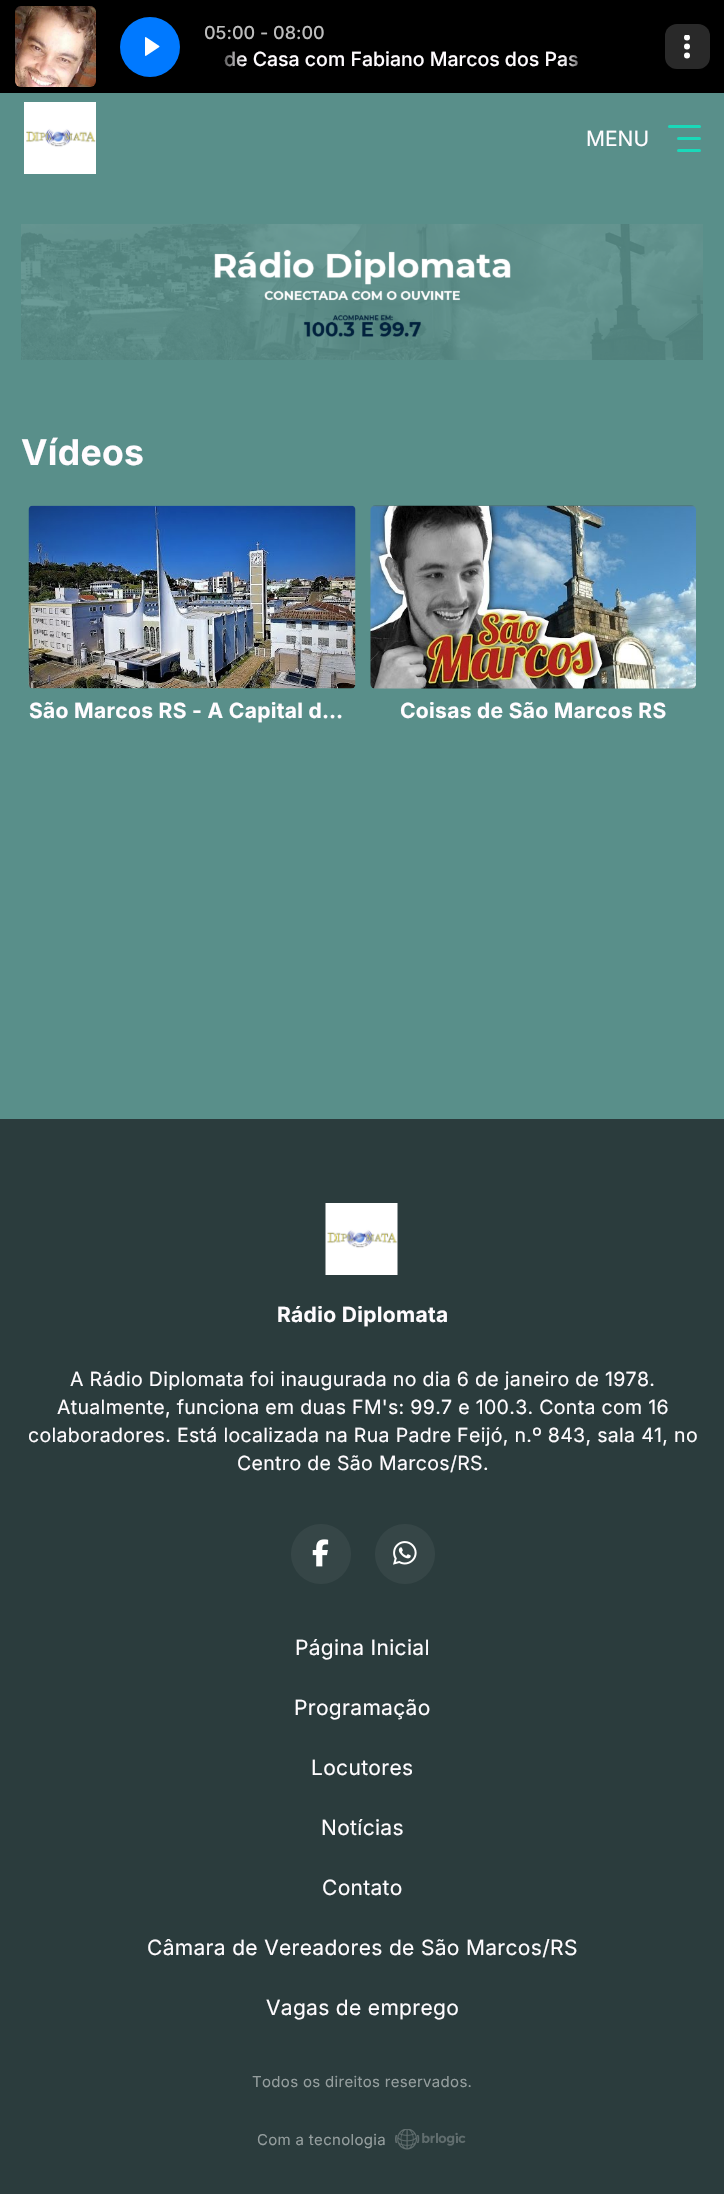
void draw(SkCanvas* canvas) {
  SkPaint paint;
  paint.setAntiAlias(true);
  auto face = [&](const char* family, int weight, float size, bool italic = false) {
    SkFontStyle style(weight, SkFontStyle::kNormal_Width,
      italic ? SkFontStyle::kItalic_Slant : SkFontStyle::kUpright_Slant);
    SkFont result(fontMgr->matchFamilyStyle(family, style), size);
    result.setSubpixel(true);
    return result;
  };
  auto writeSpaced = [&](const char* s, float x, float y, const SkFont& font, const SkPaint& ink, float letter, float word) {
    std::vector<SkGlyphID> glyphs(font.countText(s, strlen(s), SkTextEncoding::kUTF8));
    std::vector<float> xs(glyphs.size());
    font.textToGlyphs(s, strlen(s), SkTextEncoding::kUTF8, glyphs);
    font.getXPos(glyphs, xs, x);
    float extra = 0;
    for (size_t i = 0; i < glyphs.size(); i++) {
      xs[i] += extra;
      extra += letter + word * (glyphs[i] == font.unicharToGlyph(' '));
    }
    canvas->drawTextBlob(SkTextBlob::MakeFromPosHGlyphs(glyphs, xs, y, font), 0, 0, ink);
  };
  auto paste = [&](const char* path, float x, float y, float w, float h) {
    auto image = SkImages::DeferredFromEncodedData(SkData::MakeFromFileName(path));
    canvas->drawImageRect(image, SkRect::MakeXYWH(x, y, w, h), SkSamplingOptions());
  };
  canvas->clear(0xff598f8a);
  paint.setColor(0xff000000);
  canvas->drawRect(SkRect::MakeXYWH(0, 0, 724, 93), paint);
  paste("img/1.png", 15, 6, 81, 81);
  paint.setColor(0xff0079ff);
  canvas->drawCircle(150, 47, 30, paint);
  paste("img/2.png", 145, 37, 15, 19);
  paint.setColor(0xff292929);
  canvas->drawRoundRect(SkRect::MakeXYWH(665, 24, 45, 45), 12, 12, paint);
  paint.setColor(0xffffffff);
  canvas->drawCircle(687, 55.5f, 3, paint);
  canvas->drawCircle(687, 46.5f, 3, paint);
  canvas->save();
  canvas->clipRect(SkRect::MakeXYWH(684, 35, 6, 24));
  canvas->drawCircle(687, 37.5f, 3, paint);
  canvas->restore();
  paste("img/3.png", 24, 102, 72, 72);
  paint.setColor(0xff1ad9b9);
  canvas->drawRoundRect(SkRect::MakeXYWH(677, 137, 24, 3), 1.5f, 1.5f, paint);
  canvas->drawRoundRect(SkRect::MakeXYWH(668, 125, 33, 3), 1.5f, 1.5f, paint);
  canvas->drawRoundRect(SkRect::MakeXYWH(677, 149, 24, 3), 1.5f, 1.5f, paint);
  paste("img/4.png", 21, 224, 682, 136);
  paste("img/5.png", 28, 505, 328, 184);
  paste("img/6.png", 370, 505, 326, 184);
  paint.setColor(0xff2b3c3d);
  canvas->drawRect(SkRect::MakeXYWH(0, 1119, 724, 1075), paint);
  paste("img/7.png", 325, 1203, 73, 72);
  paint.setColor(0xff364647);
  canvas->drawCircle(321, 1554, 30, paint);
  paste("img/8.png", 312, 1539, 17, 28);
  canvas->drawCircle(405, 1554, 30, paint);
  paste("img/9.png", 393, 1541, 24, 24);
  paste("img/10.png", 395, 2129, 71, 21);
  auto f0 = face("Inter", 500, 18);
  paint.setColor(0xffbdbdbd);
  canvas->drawString("05:00 - 08:00", 204, 39, f0, paint);
  auto f1 = face("Inter", 500, 19.5f);
  paint.setColor(0xfffffcff);
  canvas->drawString("de Casa com Fabiano Marcos dos Pas", 224, 66, f1, paint);
  {
    const SkColor colors[] = {0xff000000, 0x00000000};
    const float stops[] = {0.2f, 1};
    const SkPoint ends[] = {{204, 59}, {245, 59}};
    paint.setShader(SkGradientShader::MakeLinear(ends, colors, stops, 2, SkTileMode::kClamp));
    paint.setAlpha(255);
  }
  canvas->drawRect(SkRect::MakeXYWH(225, 51, 19, 16), paint);
  {
    const SkColor colors[] = {0xff000000, 0x00000000};
    const float stops[] = {0.2f, 1};
    const SkPoint ends[] = {{603, 59}, {563, 59}};
    paint.setShader(SkGradientShader::MakeLinear(ends, colors, stops, 2, SkTileMode::kClamp));
    paint.setAlpha(255);
  }
  canvas->drawRect(SkRect::MakeXYWH(564, 55, 14, 12), paint);
  {
    const SkColor colors[] = {0xff000000, 0x00000000};
    const float stops[] = {0.2f, 1};
    const SkPoint ends[] = {{603, 46}, {573, 47}};
    paint.setShader(SkGradientShader::MakeLinear(ends, colors, stops, 2, SkTileMode::kClamp));
    paint.setAlpha(255);
  }
  canvas->drawRect(SkRect::MakeXYWH(574, 55, 4, 11), paint);
  auto f2 = face("Inter", 400, 21);
  paint.setShader(nullptr);
  paint.setColor(0xfffffcff);
  canvas->drawString("MENU", 586, 146, f2, paint);
  auto f3 = face("Inter", 700, 35.5f);
  writeSpaced("Vídeos", 21, 465, f3, paint, 0.32f, 0);
  auto f4 = face("Inter", 700, 21);
  {
    const struct { const char* s; float x, y; } items[] = {
      {"São Marcos RS - A Capital d…", 29, 718},
      {"Coisas de São Marcos RS", 400, 718},
      {"Rádio Diplomata", 277, 1322},
    };
    for (auto [s, x, y] : items) {
      writeSpaced(s, x, y, f4, paint, 0.32f, 0);
    }
  }
  auto f5 = face("Inter", 400, 19.5f);
  {
    const struct { const char* s; float x, y; } items[] = {
      {"A Rádio Diplomata foi inaugurada no dia 6 de janeiro de 1978.", 70, 1386},
      {"Atualmente, funciona em duas FM's: 99.7 e 100.3. Conta com 16", 57, 1414},
      {"colaboradores. Está localizada na Rua Padre Feijó, n.º 843, sala 41, no", 28, 1442},
      {"Centro de São Marcos/RS.", 237, 1470},
    };
    for (auto [s, x, y] : items) {
      writeSpaced(s, x, y, f5, paint, 0.32f, 0);
    }
  }
  {
    const struct { const char* s; float x, y; } items[] = {
      {"Página Inicial", 295, 1655},
      {"Programação", 294, 1715},
      {"Locutores", 311, 1775},
      {"Notícias", 321, 1835},
      {"Contato", 322, 1895},
      {"Câmara de Vereadores de São Marcos/RS", 147, 1955},
      {"Vagas de emprego", 266, 2015},
    };
    for (auto [s, x, y] : items) {
      writeSpaced(s, x, y, f2, paint, 0.32f, 0);
    }
  }
  auto f6 = face("Inter", 400, 15);
  paint.setColor(0xff959e9e);
  writeSpaced("Todos os direitos reservados.", 252, 2087, f6, paint, 0.32f, 0);
  writeSpaced("Com a tecnologia", 257, 2145, f6, paint, 0.32f, 0);
}
